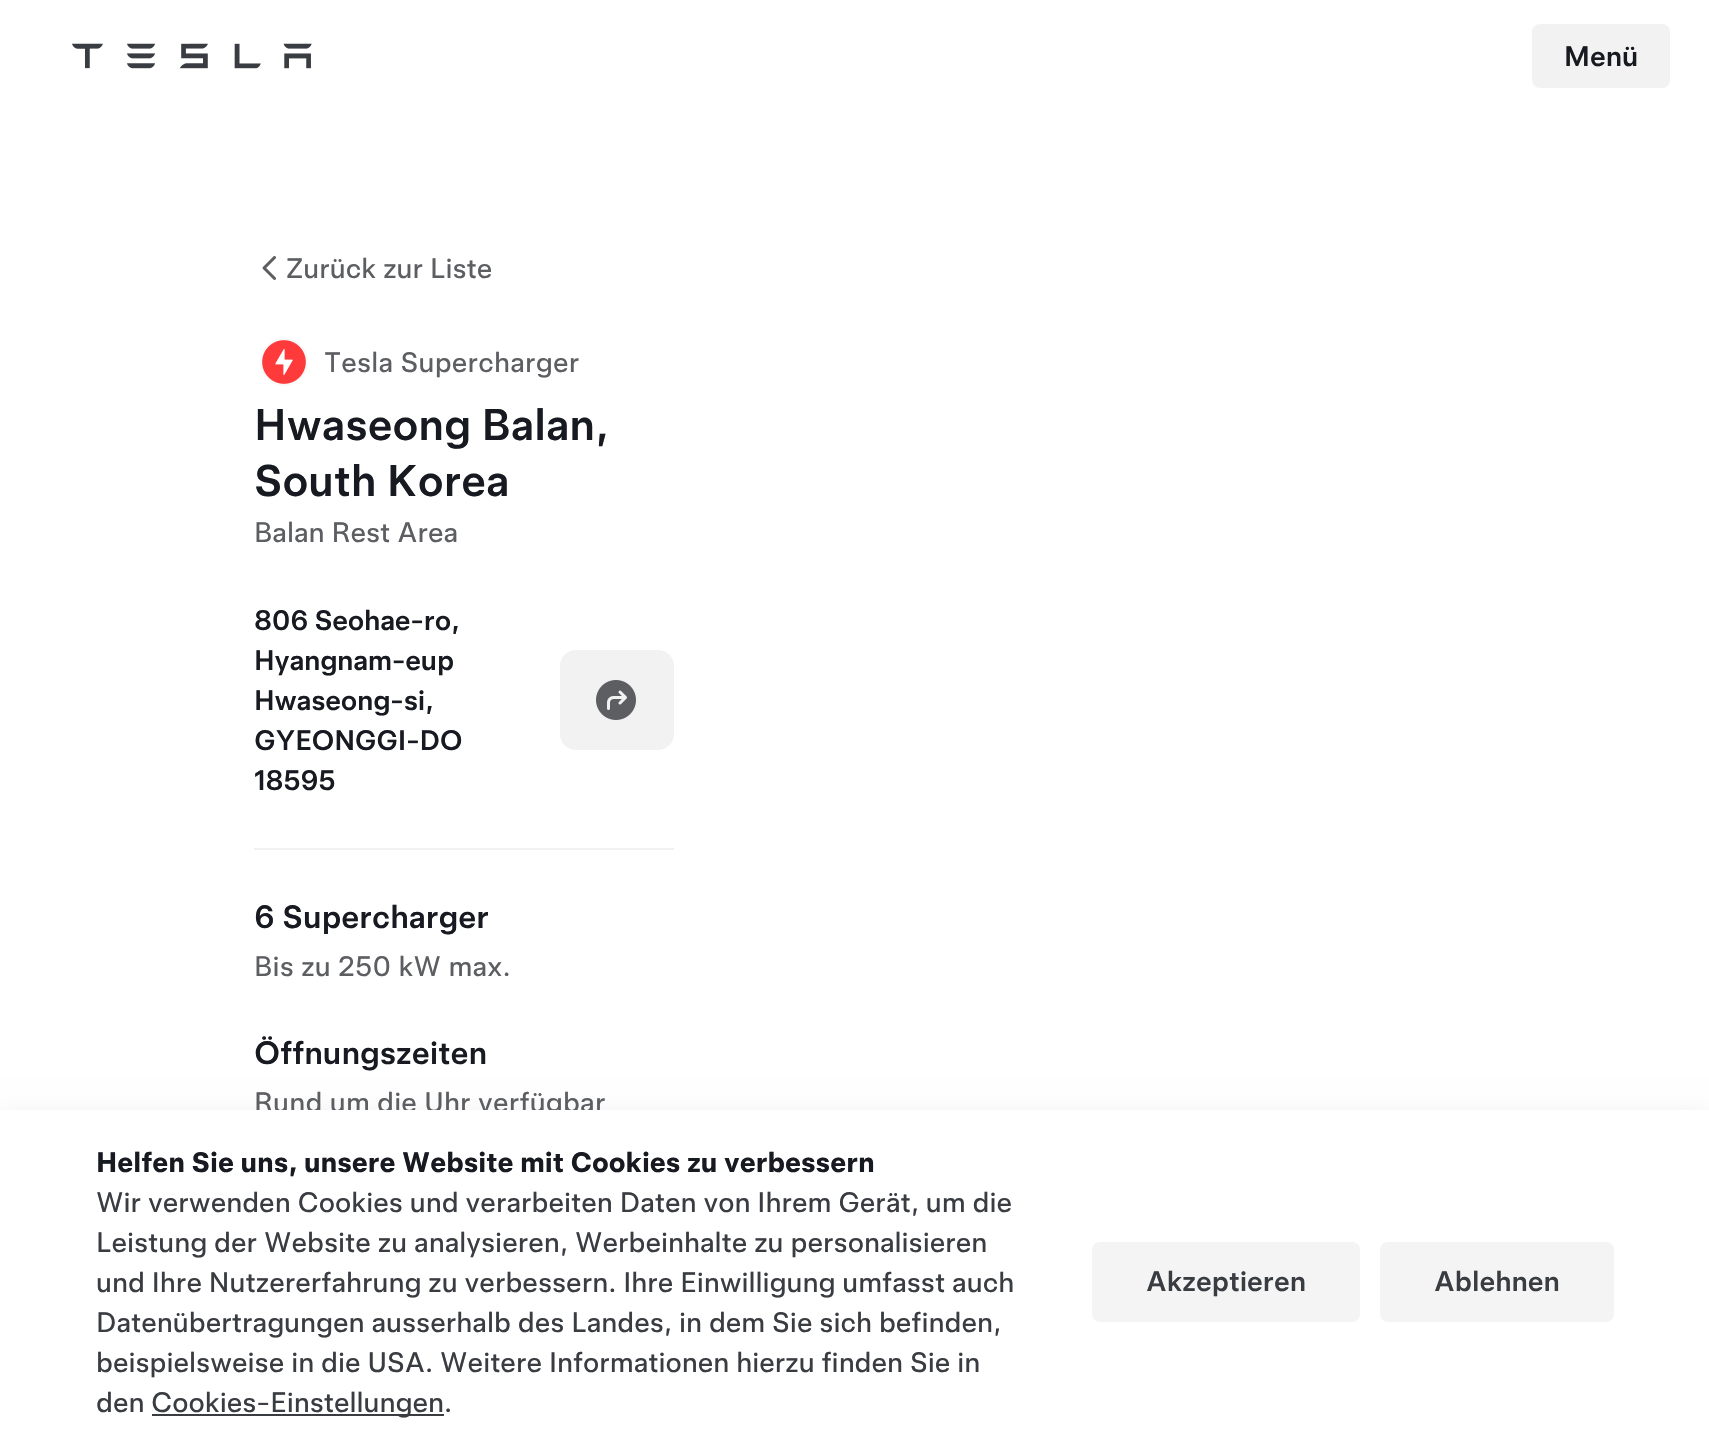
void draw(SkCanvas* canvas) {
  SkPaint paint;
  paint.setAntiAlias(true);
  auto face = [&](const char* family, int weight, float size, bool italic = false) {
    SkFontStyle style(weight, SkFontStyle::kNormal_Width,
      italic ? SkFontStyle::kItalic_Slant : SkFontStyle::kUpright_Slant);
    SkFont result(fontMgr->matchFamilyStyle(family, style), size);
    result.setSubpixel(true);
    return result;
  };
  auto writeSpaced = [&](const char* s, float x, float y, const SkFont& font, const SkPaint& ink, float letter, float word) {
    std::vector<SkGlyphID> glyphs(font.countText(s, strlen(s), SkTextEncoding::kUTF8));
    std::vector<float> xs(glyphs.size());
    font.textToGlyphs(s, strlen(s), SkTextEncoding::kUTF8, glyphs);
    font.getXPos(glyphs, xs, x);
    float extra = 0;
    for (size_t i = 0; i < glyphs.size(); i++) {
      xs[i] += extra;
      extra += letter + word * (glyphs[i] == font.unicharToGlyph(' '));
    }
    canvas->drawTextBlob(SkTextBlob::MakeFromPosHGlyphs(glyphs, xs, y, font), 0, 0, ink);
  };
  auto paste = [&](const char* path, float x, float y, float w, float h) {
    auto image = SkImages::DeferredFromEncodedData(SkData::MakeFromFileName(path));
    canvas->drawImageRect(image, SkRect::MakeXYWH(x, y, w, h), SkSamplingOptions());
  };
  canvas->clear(0xffffffff);
  paste("img/1.png", 72, 43, 240, 26);
  paint.setColor(0xfff2f2f2);
  canvas->drawRoundRect(SkRect::MakeXYWH(1532, 24, 138, 64), 8, 8, paint);
  paste("img/2.png", 262, 256, 14, 24);
  paste("img/3.png", 260, 338, 48, 48);
  canvas->drawRoundRect(SkRect::MakeXYWH(560, 650, 114, 100), 16, 16, paint);
  paste("img/4.png", 596, 680, 40, 40);
  canvas->drawRect(SkRect::MakeXYWH(254, 848, 420, 2), paint);
  paint.setColor(0x29000000);
  paint.setMaskFilter(SkMaskFilter::MakeBlur(kNormal_SkBlurStyle, 16));
  canvas->drawRect(SkRect::MakeXYWH(0, 1126, 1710, 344), paint);
  paint.setMaskFilter(nullptr);
  auto f0 = face("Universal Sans", 500, 28);
  paint.setColor(0xff171a20);
  canvas->drawString("Menü", 1564, 66, f0, paint);
  auto f1 = face("Universal Sans", 400, 28);
  paint.setColor(0xff5c5e62);
  canvas->drawString("Zurück zur Liste", 286, 278, f1, paint);
  writeSpaced("Tesla Supercharger", 324, 372, f1, paint, 0.2f, 0);
  auto f2 = face("Universal Sans", 500, 44);
  paint.setColor(0xff171a20);
  canvas->drawString("Hwaseong Balan,", 254, 440, f2, paint);
  canvas->drawString("South Korea", 254, 496, f2, paint);
  paint.setColor(0xff5c5e62);
  canvas->drawString("Balan Rest Area", 254, 542, f1, paint);
  paint.setColor(0xff171a20);
  {
    const struct { const char* s; float x, y; } items[] = {
      {"806 Seohae-ro,", 254, 630},
      {"Hyangnam-eup", 254, 670},
      {"Hwaseong-si,", 254, 710},
      {"GYEONGGI-DO", 254, 750},
      {"18595", 254, 790},
    };
    for (auto [s, x, y] : items) {
      writeSpaced(s, x, y, f0, paint, -0.25f, 0);
    }
  }
  auto f3 = face("Universal Sans", 500, 32);
  canvas->drawString("6 Supercharger", 254, 928, f3, paint);
  paint.setColor(0xff5c5e62);
  writeSpaced("Bis zu 250 kW max.", 254, 976, f1, paint, 0.2f, 0);
  paint.setColor(0xff171a20);
  canvas->drawString("Öffnungszeiten", 254, 1064, f3, paint);
  paint.setColor(0xff5c5e62);
  writeSpaced("Rund um die Uhr verfügbar", 254, 1112, f1, paint, 0.2f, 0);
  paint.setColor(0xffffffff);
  canvas->drawRect(SkRect::MakeXYWH(0, 1110, 1709, 344), paint);
  auto f4 = face("Universal Sans", 700, 28);
  paint.setColor(0xff171a20);
  canvas->drawString("Helfen Sie uns, unsere Website mit Cookies zu verbessern", 96, 1172, f4, paint);
  paint.setColor(0xff393c41);
  {
    const struct { const char* s; float x, y; } items[] = {
      {"Wir verwenden Cookies und verarbeiten Daten von Ihrem Gerät, um die", 96, 1212},
      {"Leistung der Website zu analysieren, Werbeinhalte zu personalisieren", 96, 1252},
      {"und Ihre Nutzererfahrung zu verbessern. Ihre Einwilligung umfasst auch", 96, 1292},
      {"Datenübertragungen ausserhalb des Landes, in dem Sie sich befinden,", 96, 1332},
      {"beispielsweise in die USA. Weitere Informationen hierzu finden Sie in", 96, 1372},
      {"den", 96, 1412},
    };
    for (auto [s, x, y] : items) {
      canvas->drawString(s, x, y, f1, paint);
    }
  }
  canvas->drawRect(SkRect::MakeXYWH(152, 1414, 292, 2), paint);
  canvas->drawString("Cookies-Einstellungen.", 151, 1412, f1, paint);
  paint.setColor(0xfff4f4f4);
  canvas->drawRoundRect(SkRect::MakeXYWH(1092, 1242, 268, 80), 8, 8, paint);
  paint.setColor(0xff393c41);
  canvas->drawString("Akzeptieren", 1146, 1291, f0, paint);
  paint.setColor(0xfff4f4f4);
  canvas->drawRoundRect(SkRect::MakeXYWH(1380, 1242, 234, 80), 8, 8, paint);
  paint.setColor(0xff393c41);
  canvas->drawString("Ablehnen", 1434, 1291, f0, paint);
}
